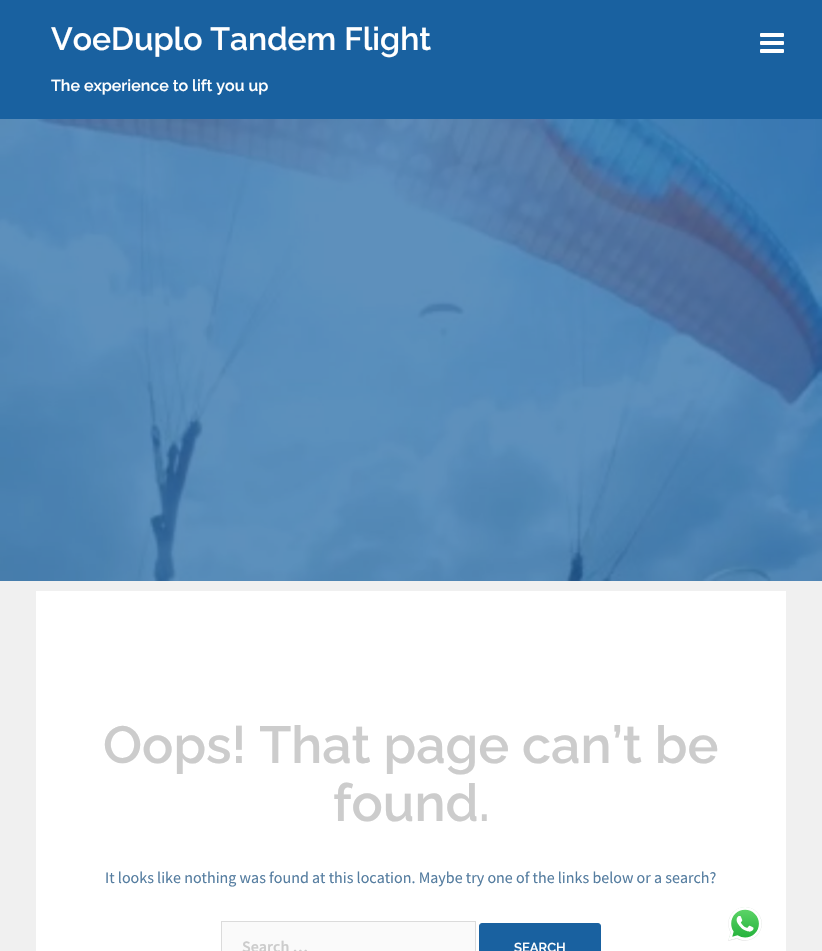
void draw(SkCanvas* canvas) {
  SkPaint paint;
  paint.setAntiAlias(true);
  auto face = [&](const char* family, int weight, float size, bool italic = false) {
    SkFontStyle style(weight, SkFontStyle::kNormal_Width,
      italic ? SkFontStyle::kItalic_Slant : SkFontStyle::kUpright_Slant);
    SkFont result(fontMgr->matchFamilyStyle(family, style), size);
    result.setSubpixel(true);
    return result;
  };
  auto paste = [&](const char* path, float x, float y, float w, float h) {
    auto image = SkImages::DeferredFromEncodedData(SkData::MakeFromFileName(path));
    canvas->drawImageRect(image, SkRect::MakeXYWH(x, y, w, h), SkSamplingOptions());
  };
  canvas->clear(0xfff0f0f0);
  paint.setColor(0xff1961a0);
  canvas->drawRect(SkRect::MakeXYWH(0, 0, 822, 119), paint);
  paste("img/1.png", 760, 33, 24, 20);
  paste("img/2.png", 0, 119, 822, 462);
  paint.setColor(0xffffffff);
  canvas->drawRect(SkRect::MakeXYWH(36, 591, 750, 360), paint);
  paint.setColor(0xfffafafa);
  canvas->drawRect(SkRect::MakeXYWH(221.5f, 921.5f, 254, 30), paint);
  paint.setStroke(true);
  paint.setStrokeWidth(1);
  paint.setColor(0xffdbdbdb);
  canvas->drawRect(SkRect::MakeXYWH(221.5f, 921.5f, 254, 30), paint);
  paint.setStroke(false);
  paint.setColor(0xff1961a0);
  canvas->drawRoundRect(SkRect::MakeXYWH(479.5f, 923.5f, 121, 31), 2.5f, 2.5f, paint);
  paint.setStroke(true);
  canvas->drawRoundRect(SkRect::MakeXYWH(479.5f, 923.5f, 121, 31), 2.5f, 2.5f, paint);
  paste("img/3.png", 728, 907, 34, 34);
  auto f0 = face("Raleway", 600, 32);
  paint.setStroke(false);
  paint.setColor(0xffffffff);
  canvas->drawString("VoeDuplo Tandem Flight", 51, 50, f0, paint);
  auto f1 = face("Raleway", 600, 16);
  canvas->drawString("The experience to lift you up", 51, 91, f1, paint);
  auto f2 = face("Raleway", 600, 52);
  paint.setColor(0xffcccccc);
  canvas->drawString("Oops! That page can’t be", 103, 763, f2, paint);
  canvas->drawString("found.", 333, 821, f2, paint);
  auto f3 = face("Source Sans Pro", 400, 16);
  paint.setColor(0xff557da0);
  canvas->drawString("It looks like nothing was found at this location. Maybe try one of the links below or a search?", 105, 883, f3, paint);
  auto f4 = face("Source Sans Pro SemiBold", 600, 16);
  paint.setColor(0xffcccccc);
  canvas->drawString("Search …", 242, 952, f4, paint);
  auto f5 = face("Raleway", 600, 13);
  paint.setColor(0xffffffff);
  canvas->drawString("SEARCH", 514, 952, f5, paint);
}
